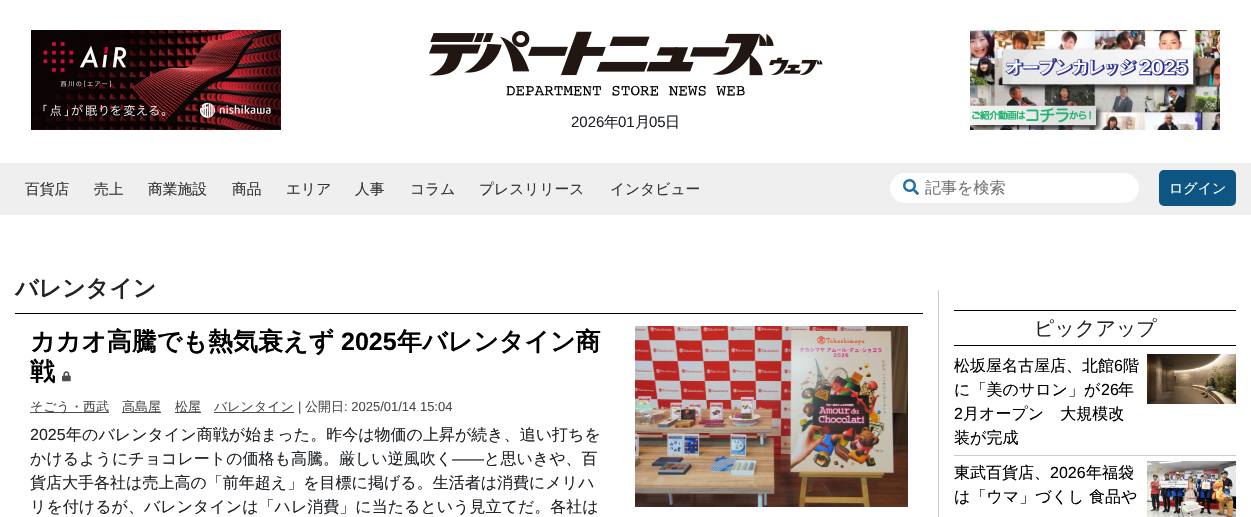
void draw(SkCanvas* canvas) {
  SkPaint paint;
  paint.setAntiAlias(true);
  auto face = [&](const char* family, int weight, float size, bool italic = false) {
    SkFontStyle style(weight, SkFontStyle::kNormal_Width,
      italic ? SkFontStyle::kItalic_Slant : SkFontStyle::kUpright_Slant);
    SkFont result(fontMgr->matchFamilyStyle(family, style), size);
    result.setSubpixel(true);
    return result;
  };
  auto paste = [&](const char* path, float x, float y, float w, float h) {
    auto image = SkImages::DeferredFromEncodedData(SkData::MakeFromFileName(path));
    canvas->drawImageRect(image, SkRect::MakeXYWH(x, y, w, h), SkSamplingOptions());
  };
  canvas->clear(0xffffffff);
  paste("img/1.png", 31, 30, 250, 100);
  paste("img/2.png", 429, 30, 394, 66);
  paste("img/3.png", 970, 30, 250, 100);
  paint.setColor(0xffefefef);
  canvas->drawRect(SkRect::MakeXYWH(0, 163, 1251, 52), paint);
  paint.setColor(0xffffffff);
  canvas->drawRoundRect(SkRect::MakeXYWH(890, 173, 249, 30), 15, 15, paint);
  paste("img/4.png", 903, 179, 16, 16);
  paint.setColor(0xff0d5582);
  canvas->drawRoundRect(SkRect::MakeXYWH(1159, 170, 77, 36), 5, 5, paint);
  paint.setColor(0xff000000);
  canvas->drawRect(SkRect::MakeXYWH(15, 313, 908, 1), paint);
  paste("img/5.png", 62, 371, 9, 11);
  {
    const struct { float x, y, w, h; SkColor color; } items[] = {
      {30, 412, 79, 1, 0xff4c4c4c},
      {122, 412, 39, 1, 0xff4c4c4c},
      {175, 412, 26, 1, 0xff4c4c4c},
      {214, 412, 80, 1, 0xff4c4c4c},
    };
    for (auto [x, y, w, h, color] : items) {
      paint.setColor(color);
      canvas->drawRect(SkRect::MakeXYWH(x, y, w, h), paint);
    }
  }
  paste("img/6.png", 635, 326, 273, 181);
  {
    const struct { float x, y, w, h; SkColor color; } items[] = {
      {938, 290, 1, 227, 0xffcccccc},
      {954, 310, 282, 1, 0xff000000},
      {954, 345, 282, 1, 0xff000000},
      {954, 455, 282, 1, 0xffcccccc},
    };
    for (auto [x, y, w, h, color] : items) {
      paint.setColor(color);
      canvas->drawRect(SkRect::MakeXYWH(x, y, w, h), paint);
    }
  }
  paste("img/7.png", 1147, 354, 89, 50);
  paste("img/8.png", 1147, 461, 89, 56);
  auto f0 = face("Liberation Sans", 400, 15);
  paint.setColor(0xff212529);
  canvas->drawString("2026", 571, 127, f0, paint);
  auto f1 = face("WenQuanYi Zen Hei", 500, 15);
  canvas->drawString("年", 604, 127, f1, paint);
  canvas->drawString("01", 618, 127, f0, paint);
  canvas->drawString("月", 635, 127, f1, paint);
  canvas->drawString("05", 649, 127, f0, paint);
  canvas->drawString("日", 665, 127, f1, paint);
  auto f2 = face("WenQuanYi Zen Hei", 500, 14.75f);
  paint.setColor(0xff333333);
  {
    const struct { const char* s; float x, y; } items[] = {
      {"百貨店", 25, 194},
      {"売上", 94, 194},
      {"商業施設", 148, 194},
      {"商品", 232, 194},
      {"エリア", 286, 194},
      {"人事", 355, 194},
      {"コラム", 410, 194},
      {"プレスリリース", 479, 194},
      {"インタビュー", 610, 194},
    };
    for (auto [s, x, y] : items) {
      canvas->drawString(s, x, y, f2, paint);
    }
  }
  auto f3 = face("WenQuanYi Zen Hei", 500, 16);
  paint.setColor(0xff757575);
  canvas->drawString("記事を検索", 925, 193, f3, paint);
  auto f4 = face("WenQuanYi Zen Hei", 500, 14);
  paint.setColor(0xffffffff);
  canvas->drawString("ログイン", 1169, 193, f4, paint);
  auto f5 = face("WenQuanYi Zen Hei", 700, 23);
  paint.setColor(0xff212529);
  canvas->drawString("バレンタイン", 15, 296, f5, paint);
  auto f6 = face("WenQuanYi Zen Hei", 700, 25);
  paint.setColor(0xff000000);
  canvas->drawString("カカオ高騰でも熱気衰えず", 30, 350, f6, paint);
  auto f7 = face("Liberation Sans", 700, 25);
  canvas->drawString("2025", 341, 350, f7, paint);
  canvas->drawString("年バレンタイン商", 397, 350, f6, paint);
  canvas->drawString("戦", 30, 380, f6, paint);
  auto f8 = face("WenQuanYi Zen Hei", 500, 13);
  paint.setColor(0xff4c4c4c);
  {
    const struct { const char* s; float x, y; } items[] = {
      {"そごう・西武", 30, 411},
      {"高島屋", 122, 411},
      {"松屋", 175, 411},
      {"バレンタイン", 214, 411},
    };
    for (auto [s, x, y] : items) {
      canvas->drawString(s, x, y, f8, paint);
    }
  }
  auto f9 = face("Liberation Sans", 400, 13);
  canvas->drawString("|", 298, 411, f9, paint);
  canvas->drawString("公開日", 305, 411, f8, paint);
  canvas->drawString(": 2025/01/14 15:04", 344, 411, f9, paint);
  auto f10 = face("Liberation Sans", 400, 16);
  paint.setColor(0xff212529);
  canvas->drawString("2025", 30, 440, f10, paint);
  canvas->drawString("年のバレンタイン商戦が始まった。昨今は物価の上昇が続き、追い打ちを", 66, 440, f3, paint);
  canvas->drawString("かけるようにチョコレートの価格も高騰。厳しい逆風吹く", 30, 464, f3, paint);
  canvas->drawString("――", 452, 464, f10, paint);
  {
    const struct { const char* s; float x, y; } items[] = {
      {"と思いきや、百", 484, 464},
      {"貨店大手各社は売上高の「前年超え」を目標に掲げる。生活者は消費にメリハ", 30, 488},
      {"リを付けるが、バレンタインは「ハレ消費」に当たるという見立てだ。各社は", 30, 512},
    };
    for (auto [s, x, y] : items) {
      canvas->drawString(s, x, y, f3, paint);
    }
  }
  auto f11 = face("WenQuanYi Zen Hei", 500, 20);
  canvas->drawString("ピックアップ", 1034, 335, f11, paint);
  paint.setColor(0xff000000);
  canvas->drawString("松坂屋名古屋店、北館", 954, 371, f3, paint);
  canvas->drawString("6", 1114, 371, f10, paint);
  canvas->drawString("階", 1123, 371, f3, paint);
  canvas->drawString("に「美のサロン」が", 954, 395, f3, paint);
  canvas->drawString("26", 1101, 395, f10, paint);
  canvas->drawString("年", 1118, 395, f3, paint);
  canvas->drawString("2", 954, 419, f10, paint);
  {
    const struct { const char* s; float x, y; } items[] = {
      {"月オープン　大規模改", 963, 419},
      {"装が完成", 954, 443},
      {"東武百貨店、", 954, 478},
    };
    for (auto [s, x, y] : items) {
      canvas->drawString(s, x, y, f3, paint);
    }
  }
  canvas->drawString("2026", 1050, 478, f10, paint);
  canvas->drawString("年福袋", 1086, 478, f3, paint);
  canvas->drawString("は「ウマ」づくし 食品や", 954, 502, f3, paint);
}
